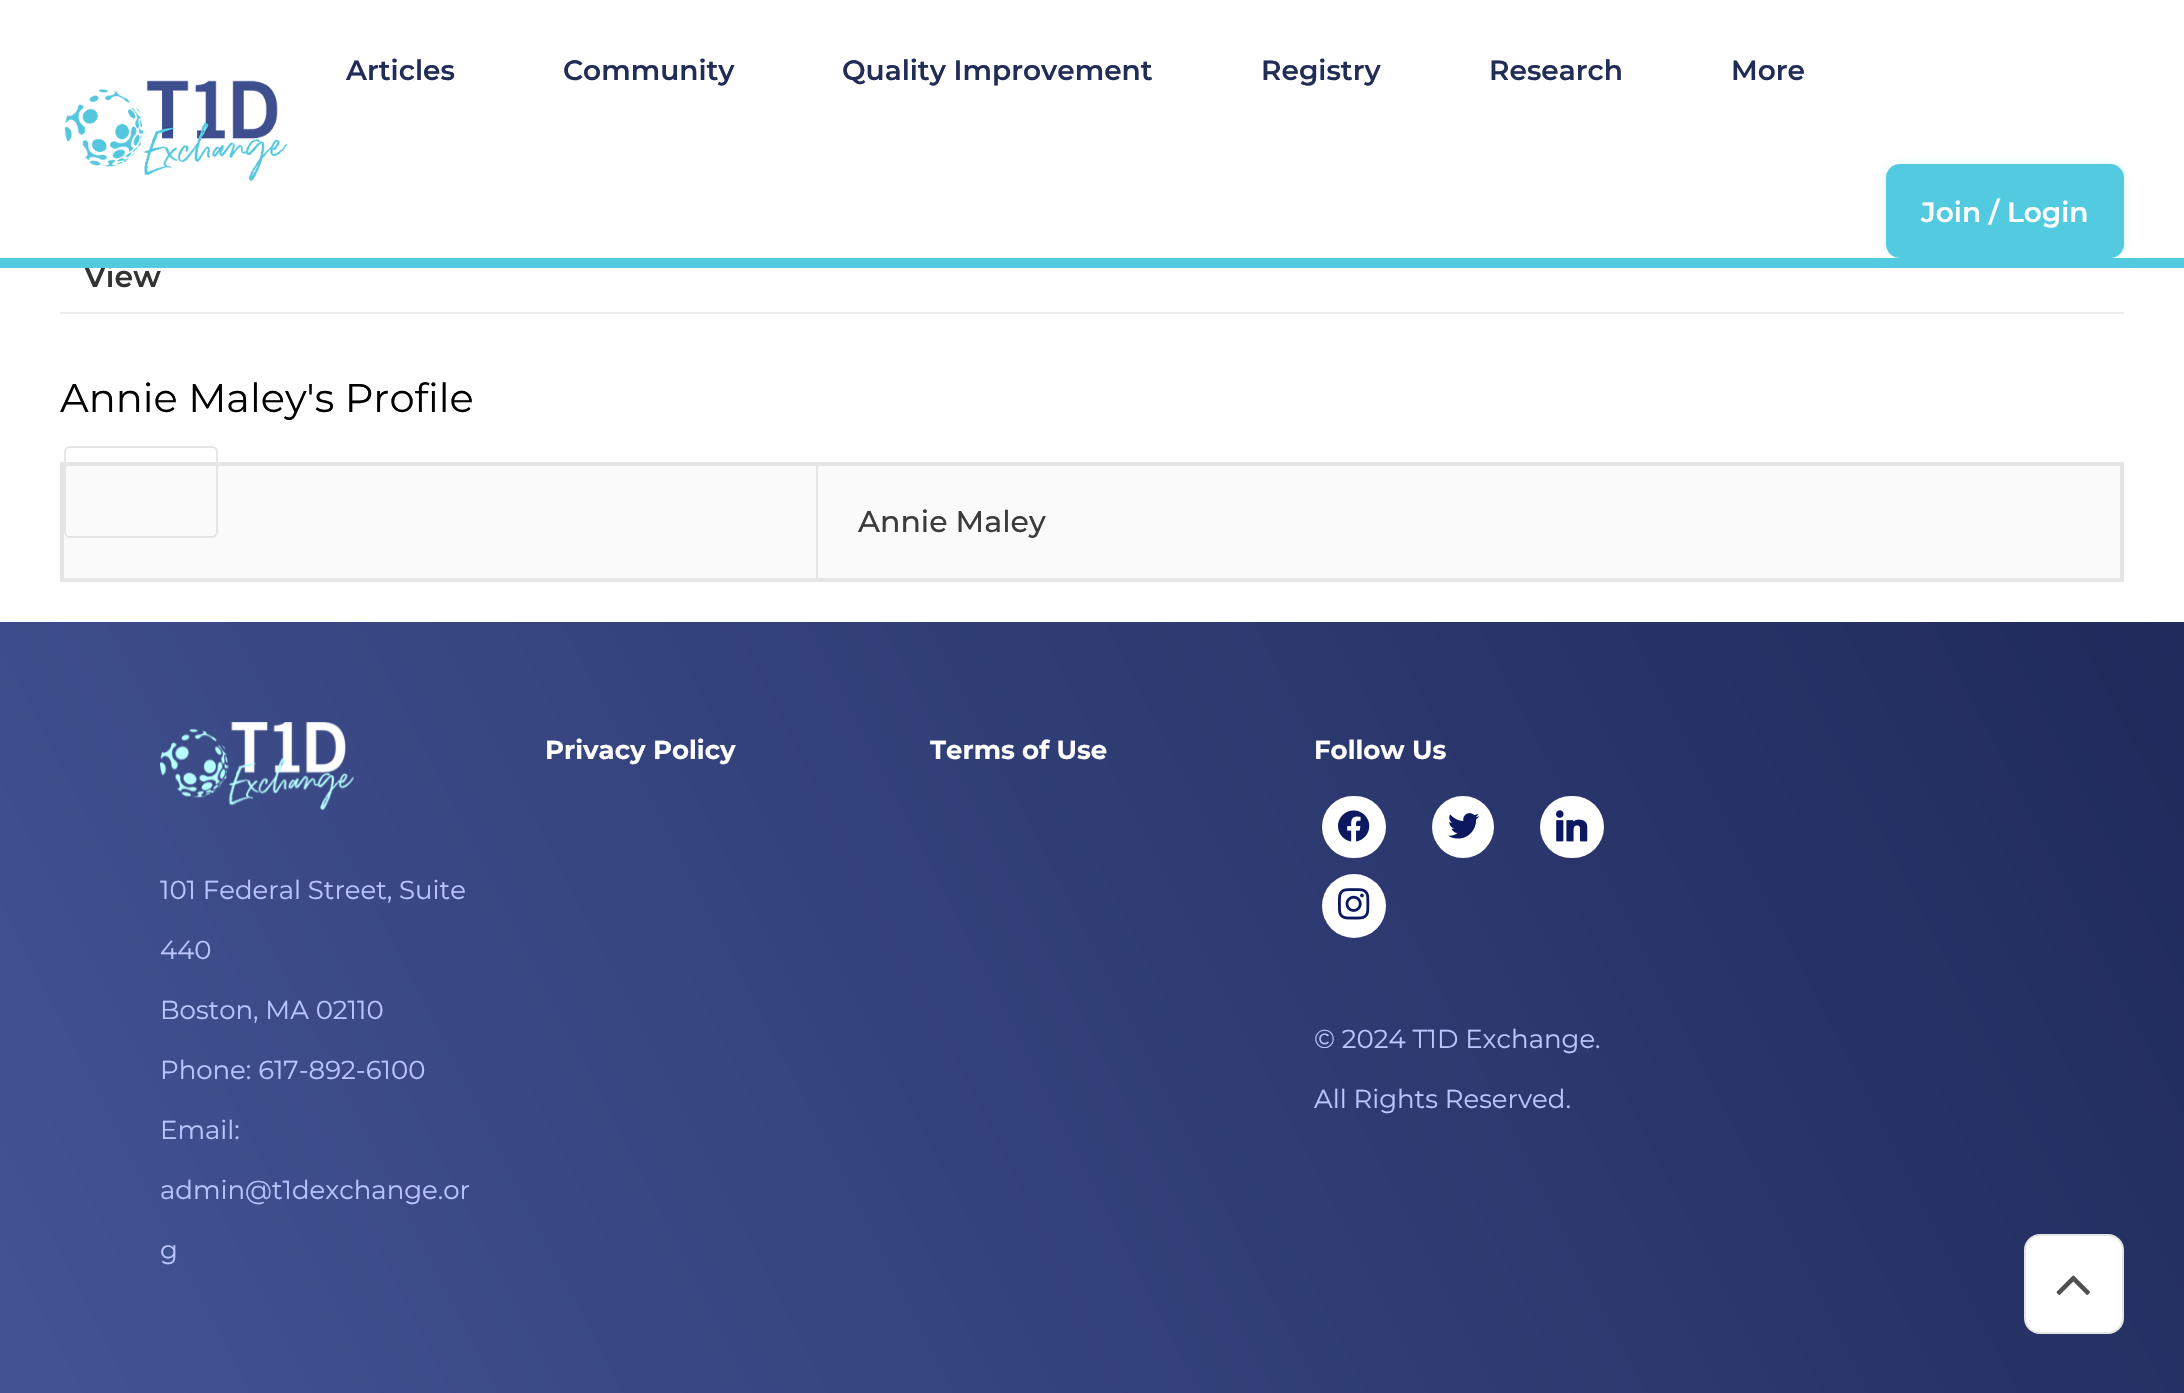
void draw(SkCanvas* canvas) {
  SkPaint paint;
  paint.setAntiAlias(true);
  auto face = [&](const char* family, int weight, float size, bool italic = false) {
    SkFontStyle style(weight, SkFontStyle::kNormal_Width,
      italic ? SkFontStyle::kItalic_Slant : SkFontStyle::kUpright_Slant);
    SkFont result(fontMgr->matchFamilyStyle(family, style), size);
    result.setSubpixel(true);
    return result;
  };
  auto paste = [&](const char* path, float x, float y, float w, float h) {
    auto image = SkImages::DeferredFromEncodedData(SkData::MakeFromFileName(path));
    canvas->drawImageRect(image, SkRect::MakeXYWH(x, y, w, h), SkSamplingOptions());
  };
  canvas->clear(0xffffffff);
  paste("img/1.png", 64, 80, 224, 102);
  {
    const struct { float x, y, w, h; SkColor color; } items[] = {
      {60, 312, 2064, 2, 0xffeeeeee},
      {64, 466, 2056, 112, 0xfffafafa},
      {816, 464, 2, 116, 0xffe5e5e5},
      {60, 462, 2064, 4, 0xffe5e5e5},
      {2120, 462, 4, 120, 0xffe5e5e5},
      {60, 578, 2064, 4, 0xffe5e5e5},
      {60, 462, 4, 120, 0xffe5e5e5},
    };
    for (auto [x, y, w, h, color] : items) {
      paint.setColor(color);
      canvas->drawRect(SkRect::MakeXYWH(x, y, w, h), paint);
    }
  }
  paint.setStroke(true);
  paint.setStrokeWidth(2);
  canvas->drawRoundRect(SkRect::MakeXYWH(65, 447, 152, 90), 5, 5, paint);
  paint.setStroke(false);
  {
    const SkColor colors[] = {0xff435494, 0xff202a5b};
    const float stops[] = {0, 1};
    const SkPoint ends[] = {{58, 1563}, {2126, 509}};
    paint.setShader(SkGradientShader::MakeLinear(ends, colors, stops, 2, SkTileMode::kClamp));
    paint.setAlpha(255);
  }
  canvas->drawRect(SkRect::MakeXYWH(0, 622, 2184, 771), paint);
  paste("img/2.png", 160, 722, 194, 88);
  paint.setShader(nullptr);
  paint.setColor(0xffffffff);
  canvas->drawRoundRect(SkRect::MakeXYWH(1322, 796, 64, 62), 31, 31, paint);
  paste("img/3.png", 1338, 810, 32, 32);
  canvas->drawCircle(1463, 827, 31, paint);
  paste("img/4.png", 1448, 813, 32, 26);
  canvas->drawRoundRect(SkRect::MakeXYWH(1540, 796, 64, 62), 31, 31, paint);
  paste("img/5.png", 1556, 810, 32, 32);
  canvas->drawCircle(1354, 906, 32, paint);
  paste("img/6.png", 1338, 888, 32, 32);
  canvas->drawRoundRect(SkRect::MakeXYWH(2024, 1234, 100, 100), 16, 16, paint);
  paint.setStroke(true);
  paint.setColor(0x1a000000);
  canvas->drawRoundRect(SkRect::MakeXYWH(2025, 1235, 98, 98), 15, 15, paint);
  paste("img/7.png", 2056, 1275, 34, 20);
  auto f0 = face("Montserrat", 600, 28);
  paint.setStroke(false);
  paint.setColor(0xff222d57);
  {
    const struct { const char* s; float x, y; } items[] = {
      {"Articles", 346, 80},
      {"Community", 563, 80},
      {"Quality Improvement", 842, 80},
      {"Registry", 1261, 80},
      {"Research", 1489, 80},
      {"More", 1731, 80},
    };
    for (auto [s, x, y] : items) {
      canvas->drawString(s, x, y, f0, paint);
    }
  }
  auto f1 = face("Montserrat", 600, 30);
  paint.setColor(0xff333333);
  canvas->drawString("View", 84, 287, f1, paint);
  paint.setColor(0xff52cae0);
  canvas->drawRect(SkRect::MakeXYWH(0, 258, 2184, 10), paint);
  paint.setColor(0x3352cae0);
  paint.setMaskFilter(SkMaskFilter::MakeBlur(kNormal_SkBlurStyle, 5));
  canvas->drawRoundRect(SkRect::MakeXYWH(1886, 164, 238, 94), 14, 14, paint);
  paint.setMaskFilter(nullptr);
  paint.setColor(0xff52cae0);
  canvas->drawRoundRect(SkRect::MakeXYWH(1886, 164, 238, 94), 14, 14, paint);
  paint.setColor(0xffffffff);
  canvas->drawString("Join / Login", 1921, 222, f0, paint);
  auto f2 = face("Montserrat", 400, 40);
  paint.setColor(0xff000000);
  canvas->drawString("Annie Maley's Profile", 60, 412, f2, paint);
  auto f3 = face("Montserrat", 500, 30);
  paint.setColor(0xff3c3c3c);
  canvas->drawString("Annie Maley", 858, 532, f3, paint);
  auto f4 = face("Montserrat", 400, 26);
  paint.setColor(0xffbac6ff);
  {
    const struct { const char* s; float x, y; } items[] = {
      {"101 Federal Street, Suite", 160, 899},
      {"440", 160, 959},
      {"Boston, MA 02110", 160, 1019},
      {"Phone: 617-892-6100", 160, 1079},
      {"Email:", 160, 1139},
      {"admin@t1dexchange.or", 160, 1199},
      {"g", 160, 1259},
    };
    for (auto [s, x, y] : items) {
      canvas->drawString(s, x, y, f4, paint);
    }
  }
  auto f5 = face("Montserrat", 700, 26);
  paint.setColor(0xffffffff);
  {
    const struct { const char* s; float x, y; } items[] = {
      {"Privacy Policy", 545, 759},
      {"Terms of Use", 930, 759},
      {"Follow Us", 1314, 759},
    };
    for (auto [s, x, y] : items) {
      canvas->drawString(s, x, y, f5, paint);
    }
  }
  paint.setColor(0xffbac6ff);
  canvas->drawString("© 2024 T1D Exchange.", 1314, 1048, f4, paint);
  canvas->drawString("All Rights Reserved.", 1314, 1108, f4, paint);
}
